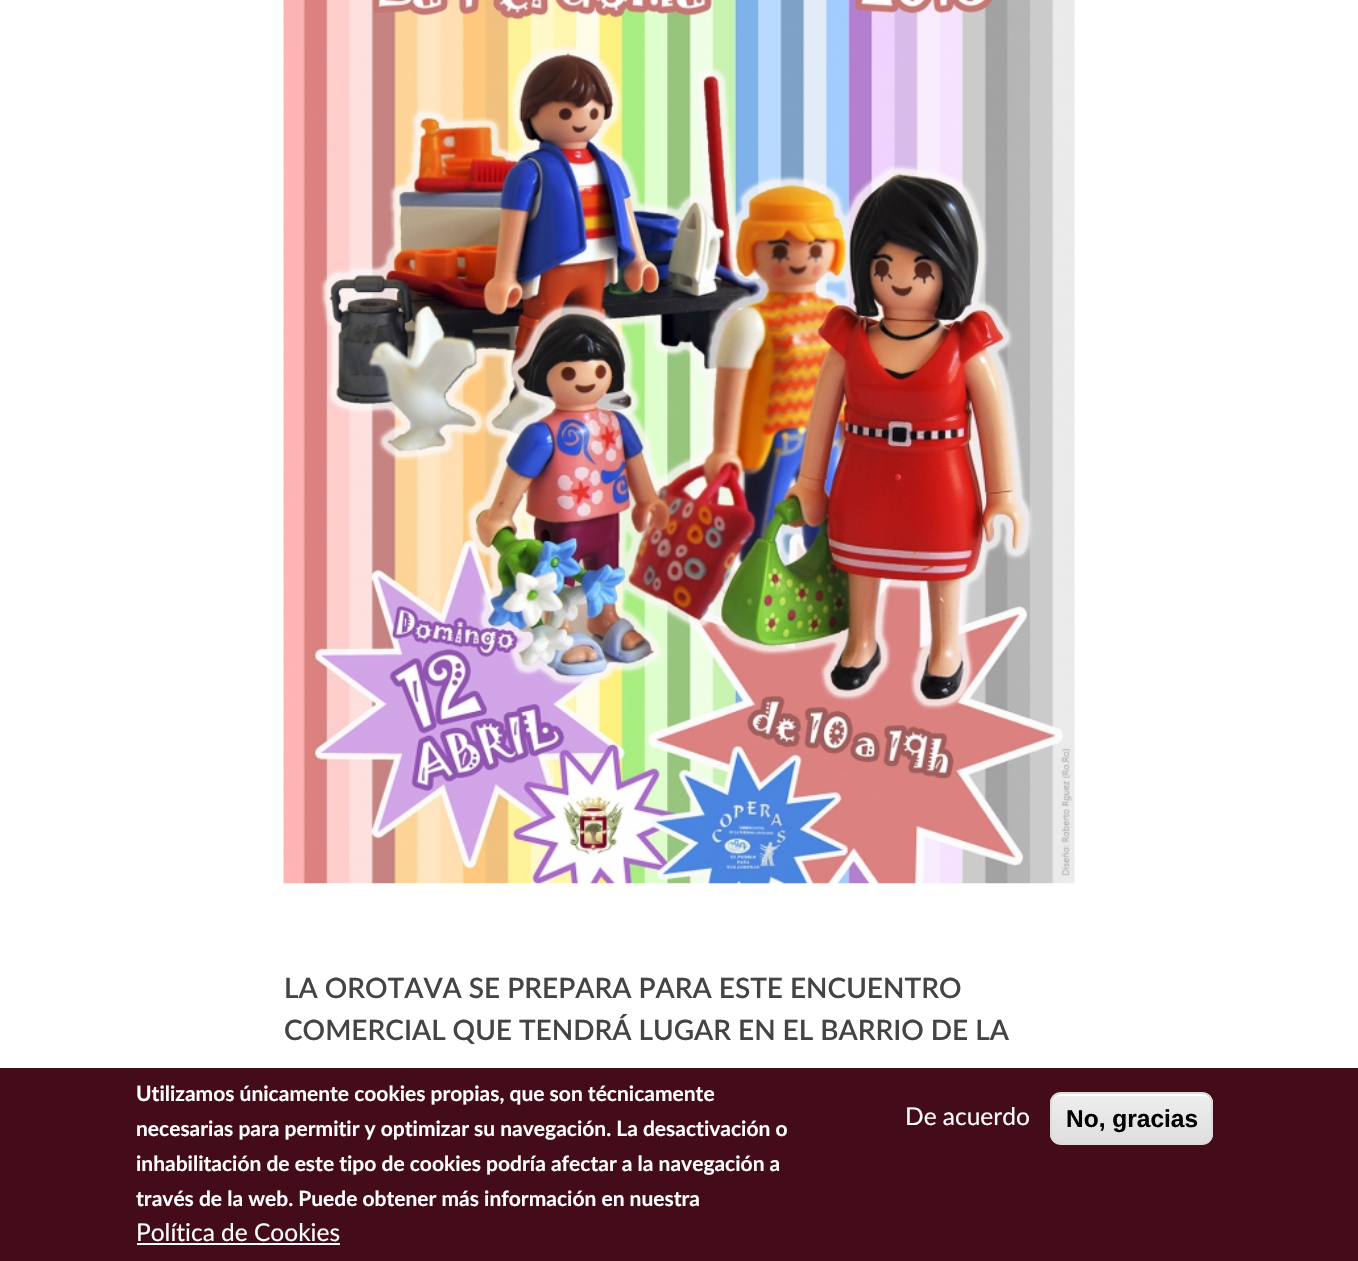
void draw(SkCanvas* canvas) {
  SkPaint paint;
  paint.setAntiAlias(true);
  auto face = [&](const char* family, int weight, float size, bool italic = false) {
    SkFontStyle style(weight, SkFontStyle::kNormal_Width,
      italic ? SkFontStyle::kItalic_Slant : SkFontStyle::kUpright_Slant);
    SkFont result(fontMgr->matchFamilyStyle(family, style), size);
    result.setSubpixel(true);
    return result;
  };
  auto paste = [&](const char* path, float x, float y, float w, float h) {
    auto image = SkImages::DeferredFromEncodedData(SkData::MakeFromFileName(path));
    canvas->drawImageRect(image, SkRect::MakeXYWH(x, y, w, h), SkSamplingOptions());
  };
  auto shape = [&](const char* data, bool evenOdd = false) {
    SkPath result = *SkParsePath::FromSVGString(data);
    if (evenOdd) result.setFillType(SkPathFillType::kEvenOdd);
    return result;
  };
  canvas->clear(0xffffffff);
  paste("img/1.png", 283, 0, 792, 884);
  paint.setColor(0xff440c19);
  canvas->drawRect(SkRect::MakeXYWH(0, 1068, 1358, 193), paint);
  paint.setColor(0xffffffff);
  canvas->drawRect(SkRect::MakeXYWH(137, 1243, 203, 2), paint);
  canvas->save();
  canvas->clipPath(shape("M1061 1092H1202C1208 1092 1213 1097 1213 1103V1134C1213 1140 1208 1145 1202 1145H1061C1055 1145 1050 1140 1050 1134V1103C1050 1097 1055 1092 1061 1092Z"), true);
  {
    const SkColor colors[] = {0xffededed, 0xffdfdfdf};
    const float stops[] = {0.05f, 1};
    const SkPoint ends[] = {{1131, 1094}, {1131, 1143}};
    paint.setShader(SkGradientShader::MakeLinear(ends, colors, stops, 2, SkTileMode::kClamp));
    paint.setAlpha(255);
  }
  canvas->drawRect(SkRect::MakeXYWH(1050, 1094, 163, 49), paint);
  canvas->restore();
  paint.setShader(nullptr);
  paint.setColor(0xffffffff);
  canvas->drawPath(shape("M1060 1096H1202C1207 1096 1211 1099 1211 1104C1211 1088 1187 1094 1178 1094H1084C1076 1094 1052 1088 1052 1104C1052 1099 1056 1096 1060 1096Z"), paint);
  paint.setStroke(true);
  paint.setStrokeWidth(2);
  paint.setColor(0xffdcdcdc);
  canvas->drawRoundRect(SkRect::MakeXYWH(1051, 1093, 161, 51), 10, 10, paint);
  auto f0 = face("Lato", 600, 28);
  paint.setStroke(false);
  paint.setColor(0xff444444);
  canvas->drawString("LA OROTAVA SE PREPARA PARA ESTE ENCUENTRO", 284, 998, f0, paint);
  canvas->drawString("COMERCIAL QUE TENDRÁ LUGAR EN EL BARRIO DE LA", 284, 1040, f0, paint);
  auto f1 = face("Lato", 700, 21);
  paint.setColor(0xffffffff);
  {
    const struct { const char* s; float x, y; } items[] = {
      {"Utilizamos únicamente cookies propias, que son técnicamente", 136, 1101},
      {"necesarias para permitir y optimizar su navegación. La desactivación o", 136, 1136},
      {"inhabilitación de este tipo de cookies podría afectar a la navegación a", 136, 1171},
      {"través de la web. Puede obtener más información en nuestra", 136, 1206},
    };
    for (auto [s, x, y] : items) {
      canvas->drawString(s, x, y, f1, paint);
    }
  }
  auto f2 = face("Lato", 400, 24.5f);
  canvas->drawString("Política de Cookies", 136, 1241, f2, paint);
  canvas->drawString("De acuerdo", 905, 1125, f2, paint);
  auto f3 = face("Liberation Sans", 700, 24.5f);
  paint.setColor(0xff000000);
  canvas->drawString("No, gracias", 1066, 1127, f3, paint);
}
